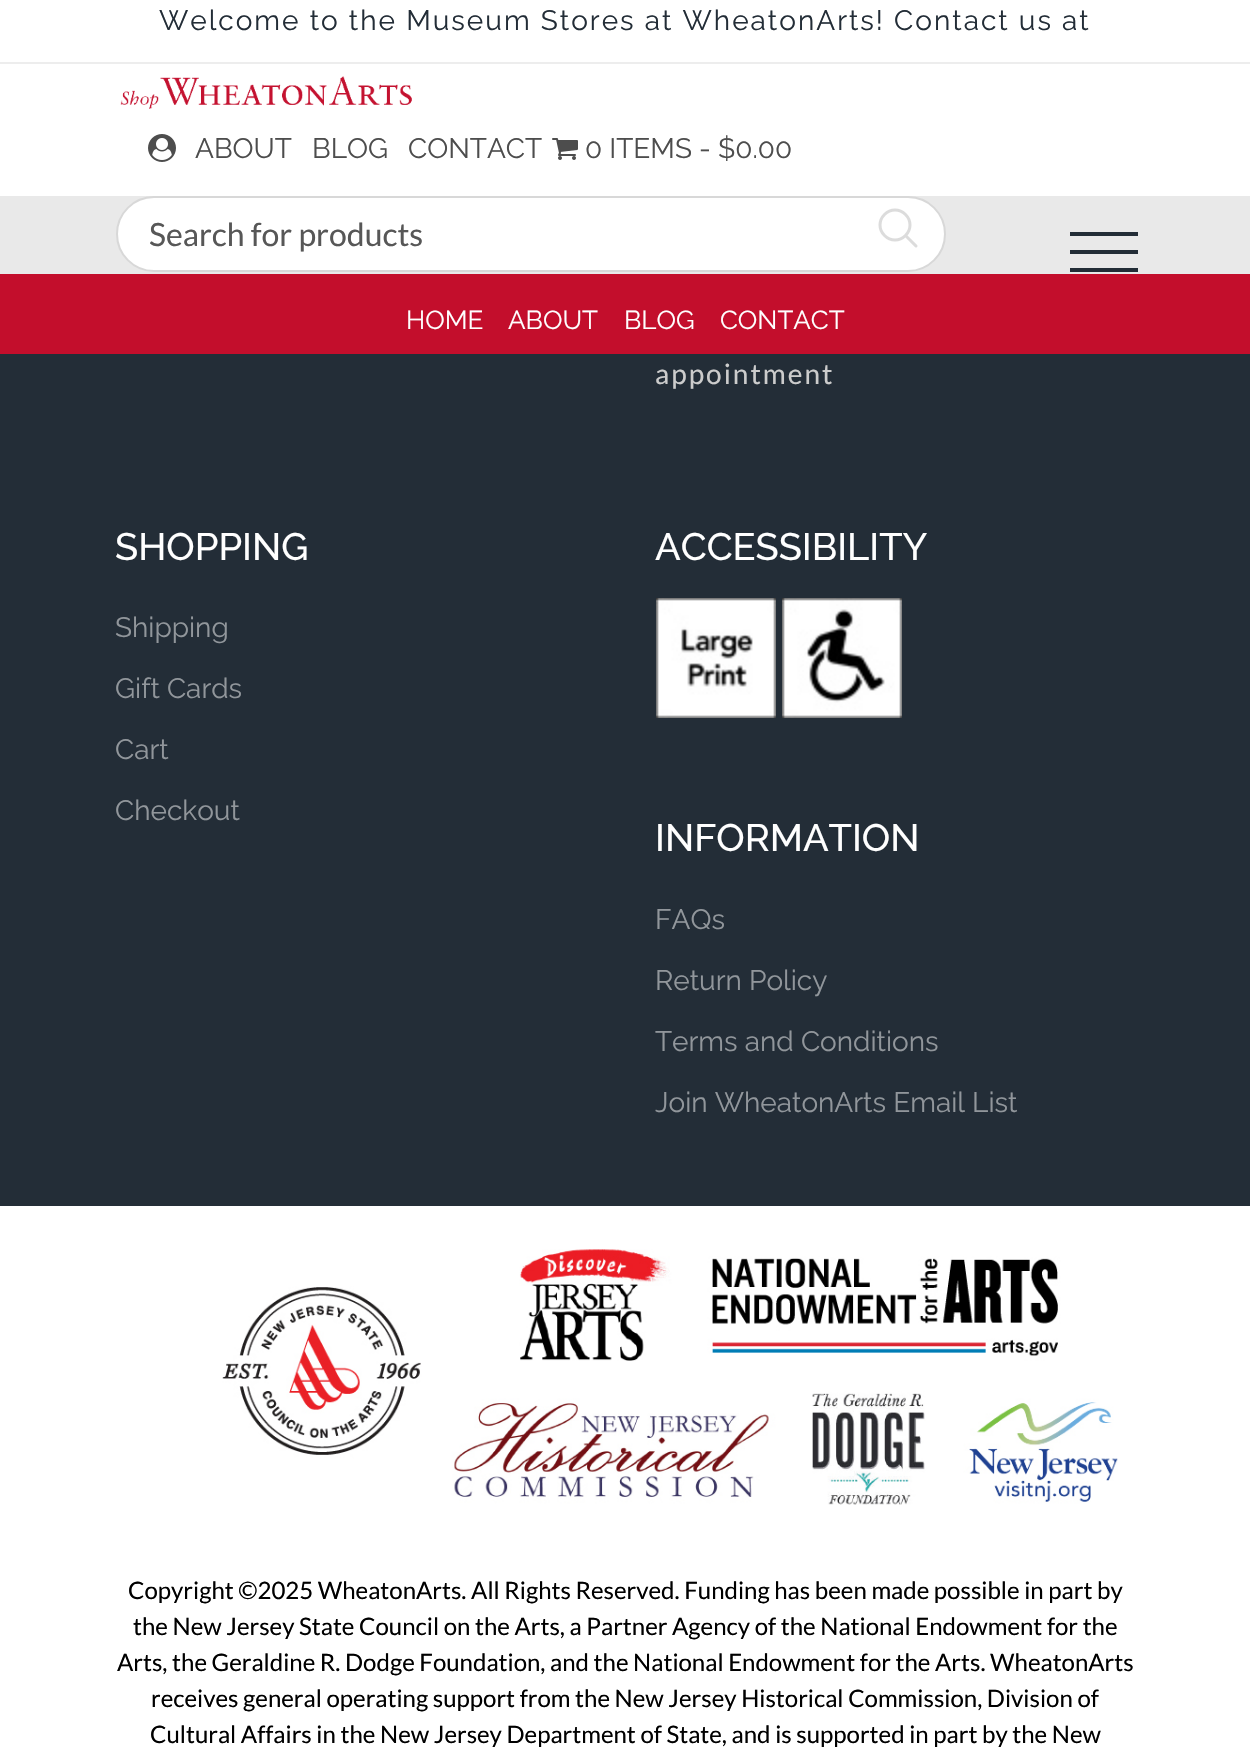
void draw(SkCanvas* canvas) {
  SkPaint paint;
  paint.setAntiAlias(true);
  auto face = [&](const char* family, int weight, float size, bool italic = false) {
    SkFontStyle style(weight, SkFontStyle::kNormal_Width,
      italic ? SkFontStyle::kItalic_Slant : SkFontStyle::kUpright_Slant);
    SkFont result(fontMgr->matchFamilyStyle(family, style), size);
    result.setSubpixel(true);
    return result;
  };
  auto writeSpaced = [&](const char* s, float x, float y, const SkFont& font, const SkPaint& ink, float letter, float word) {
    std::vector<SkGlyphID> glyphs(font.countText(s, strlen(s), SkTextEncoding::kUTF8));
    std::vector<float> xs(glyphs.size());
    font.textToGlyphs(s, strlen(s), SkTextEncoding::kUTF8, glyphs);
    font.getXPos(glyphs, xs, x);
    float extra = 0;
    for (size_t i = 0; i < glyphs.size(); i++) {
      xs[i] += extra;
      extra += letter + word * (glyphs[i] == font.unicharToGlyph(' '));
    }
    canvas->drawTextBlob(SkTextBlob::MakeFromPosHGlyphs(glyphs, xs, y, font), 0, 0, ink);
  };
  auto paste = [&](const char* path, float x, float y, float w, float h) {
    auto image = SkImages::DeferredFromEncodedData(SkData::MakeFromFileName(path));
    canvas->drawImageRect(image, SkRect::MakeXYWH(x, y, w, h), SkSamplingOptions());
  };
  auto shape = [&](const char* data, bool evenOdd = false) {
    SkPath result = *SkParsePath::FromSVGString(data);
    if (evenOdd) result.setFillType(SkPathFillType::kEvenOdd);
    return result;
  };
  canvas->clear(0xff232d37);
  {
    const struct { float x, y, w, h; SkColor color; } items[] = {
      {0, 0, 1250, 62, 0xffffffff},
      {0, 62, 1250, 2, 0xffededed},
      {0, 64, 1250, 132, 0xffffffff},
    };
    for (auto [x, y, w, h, color] : items) {
      paint.setColor(color);
      canvas->drawRect(SkRect::MakeXYWH(x, y, w, h), paint);
    }
  }
  paste("img/1.png", 120, 76, 292, 33);
  paste("img/2.png", 148, 134, 28, 28);
  paste("img/3.png", 552, 138, 26, 22);
  paint.setColor(0xffe9e9e9);
  canvas->drawRect(SkRect::MakeXYWH(0, 196, 1250, 78), paint);
  paint.setColor(0xffffffff);
  canvas->drawRoundRect(SkRect::MakeXYWH(117, 197, 828, 74), 37, 37, paint);
  paint.setStroke(true);
  paint.setStrokeWidth(2);
  paint.setColor(0xffd8d8d8);
  canvas->drawRoundRect(SkRect::MakeXYWH(117, 197, 828, 74), 37, 37, paint);
  paint.setStrokeWidth(3);
  paint.setStrokeCap(SkPaint::kRound_Cap);
  paint.setStrokeJoin(SkPaint::kRound_Join);
  paint.setColor(0xffdcdcdc);
  canvas->drawPath(shape("M916 246L905.5 235.5M905.5 235.5C911.5 229.5 911.5 220.5 905.5 214.5C899.5 208.5 890.5 208.5 884.5 214.5C878.5 220.5 878.5 229.5 884.5 235.5C890.5 241.5 899.5 241.5 905.5 235.5Z"), paint);
  paint.setStroke(false);
  {
    const struct { float x, y, w, h; SkColor color; } items[] = {
      {1070, 232, 68, 4, 0xff232d37},
      {1070, 250, 68, 4, 0xff232d37},
      {1070, 268, 68, 4, 0xff232d37},
      {0, 274, 1250, 80, 0xffc30e2c},
    };
    for (auto [x, y, w, h, color] : items) {
      paint.setColor(color);
      canvas->drawRect(SkRect::MakeXYWH(x, y, w, h), paint);
    }
  }
  paste("img/4.png", 656, 598, 120, 120);
  paste("img/5.png", 782, 598, 120, 120);
  paint.setColor(0xffffffff);
  canvas->drawRect(SkRect::MakeXYWH(0, 1206, 1250, 555), paint);
  paste("img/6.png", 222, 1249, 896, 256);
  auto f0 = face("Raleway", 400, 28);
  paint.setColor(0xff232d37);
  writeSpaced("Welcome to the Museum Stores at WheatonArts! Contact us at", 159, 30, f0, paint, 2, 0);
  paint.setColor(0xff4d4d4d);
  {
    const struct { const char* s; float x, y; } items[] = {
      {"ABOUT", 195, 158},
      {"BLOG", 312, 158},
      {"CONTACT", 408, 158},
      {"0 ITEMS - $0.00", 585, 158},
    };
    for (auto [s, x, y] : items) {
      canvas->drawString(s, x, y, f0, paint);
    }
  }
  auto f1 = face("Lato", 400, 32);
  paint.setColor(0xff575757);
  canvas->drawString("Search for products", 149, 246, f1, paint);
  auto f2 = face("Raleway", 400, 26);
  paint.setColor(0xffffffff);
  {
    const struct { const char* s; float x, y; } items[] = {
      {"HOME", 406, 329},
      {"ABOUT", 508, 329},
      {"BLOG", 624, 329},
      {"CONTACT", 720, 329},
    };
    for (auto [s, x, y] : items) {
      canvas->drawString(s, x, y, f2, paint);
    }
  }
  auto f3 = face("Lato", 400, 28);
  paint.setColor(0xffcccccc);
  writeSpaced("appointment", 655, 384, f3, paint, 2, 0);
  auto f4 = face("Raleway", 500, 38);
  paint.setColor(0xffffffff);
  canvas->drawString("SHOPPING", 115, 560, f4, paint);
  paint.setColor(0xff91969b);
  {
    const struct { const char* s; float x, y; } items[] = {
      {"Shipping", 115, 637},
      {"Gift Cards", 115, 698},
      {"Cart", 115, 759},
      {"Checkout", 115, 820},
    };
    for (auto [s, x, y] : items) {
      canvas->drawString(s, x, y, f0, paint);
    }
  }
  paint.setColor(0xffffffff);
  canvas->drawString("ACCESSIBILITY", 655, 560, f4, paint);
  canvas->drawString("INFORMATION", 655, 851, f4, paint);
  paint.setColor(0xff91969b);
  {
    const struct { const char* s; float x, y; } items[] = {
      {"FAQs", 655, 929},
      {"Return Policy", 655, 990},
      {"Terms and Conditions", 655, 1051},
      {"Join WheatonArts Email List", 655, 1112},
    };
    for (auto [s, x, y] : items) {
      canvas->drawString(s, x, y, f0, paint);
    }
  }
  auto f5 = face("Lato", 400, 24);
  paint.setColor(0xff000000);
  {
    const struct { const char* s; float x, y; } items[] = {
      {"Copyright ©2025 WheatonArts. All Rights Reserved. Funding has been made possible in part by", 128, 1599},
      {"the New Jersey State Council on the Arts, a Partner Agency of the National Endowment for the", 133, 1635},
      {"Arts, the Geraldine R. Dodge Foundation, and the National Endowment for the Arts. WheatonArts", 117, 1671},
      {"receives general operating support from the New Jersey Historical Commission, Division of", 151, 1707},
      {"Cultural Affairs in the New Jersey Department of State, and is supported in part by the New", 150, 1743},
    };
    for (auto [s, x, y] : items) {
      canvas->drawString(s, x, y, f5, paint);
    }
  }
}
